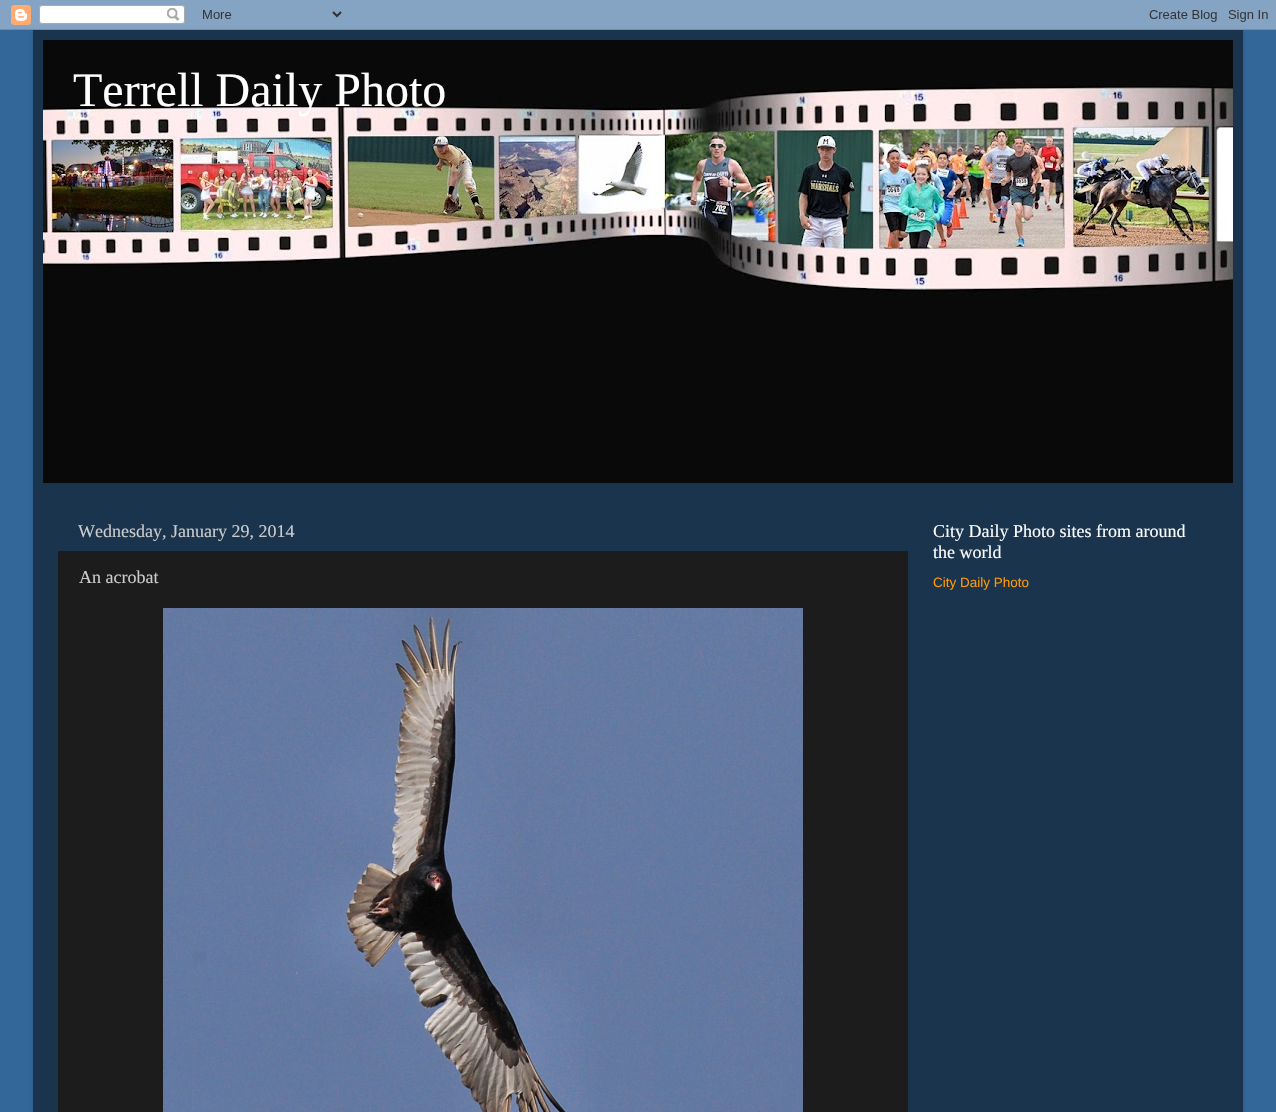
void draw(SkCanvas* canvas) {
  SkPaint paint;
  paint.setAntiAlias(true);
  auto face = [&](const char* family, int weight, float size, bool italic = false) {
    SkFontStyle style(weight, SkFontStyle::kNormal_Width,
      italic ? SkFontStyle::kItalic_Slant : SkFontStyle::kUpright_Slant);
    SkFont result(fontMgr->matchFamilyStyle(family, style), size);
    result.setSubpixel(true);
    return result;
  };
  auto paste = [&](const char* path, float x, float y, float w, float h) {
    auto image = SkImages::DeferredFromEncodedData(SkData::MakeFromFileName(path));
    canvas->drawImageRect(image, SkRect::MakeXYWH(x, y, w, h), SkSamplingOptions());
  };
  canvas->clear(0xff336699);
  paint.setColor(0x26000000);
  paint.setMaskFilter(SkMaskFilter::MakeBlur(kNormal_SkBlurStyle, 1.5f));
  canvas->drawRect(SkRect::MakeXYWH(33, 30, 1210, 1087), paint);
  paint.setMaskFilter(nullptr);
  paste("img/1.png", 0, 0, 1276, 30);
  paint.setColor(0xff1a344d);
  canvas->drawRect(SkRect::MakeXYWH(33, 30, 1210, 1082), paint);
  paste("img/2.png", 43, 40, 1190, 443);
  paint.setColor(0xff1c1c1c);
  canvas->drawRect(SkRect::MakeXYWH(58, 551, 850, 561), paint);
  paste("img/3.png", 163, 608, 640, 504);
  auto f0 = face("Liberation Serif", 400, 48);
  paint.setColor(0xffffffff);
  canvas->drawString("Terrell Daily Photo", 73, 106, f0, paint);
  auto f1 = face("Liberation Serif", 400, 18);
  paint.setColor(0xffcccccc);
  canvas->drawString("Wednesday, January 29, 2014", 78, 537, f1, paint);
  canvas->drawString("An acrobat", 79, 583, f1, paint);
  paint.setColor(0xffffffff);
  canvas->drawString("City Daily Photo sites from around", 933, 537, f1, paint);
  canvas->drawString("the world", 933, 558, f1, paint);
  auto f2 = face("Liberation Sans", 400, 13.5f);
  paint.setColor(0xffff9900);
  canvas->drawString("City Daily Photo", 933, 587, f2, paint);
}
